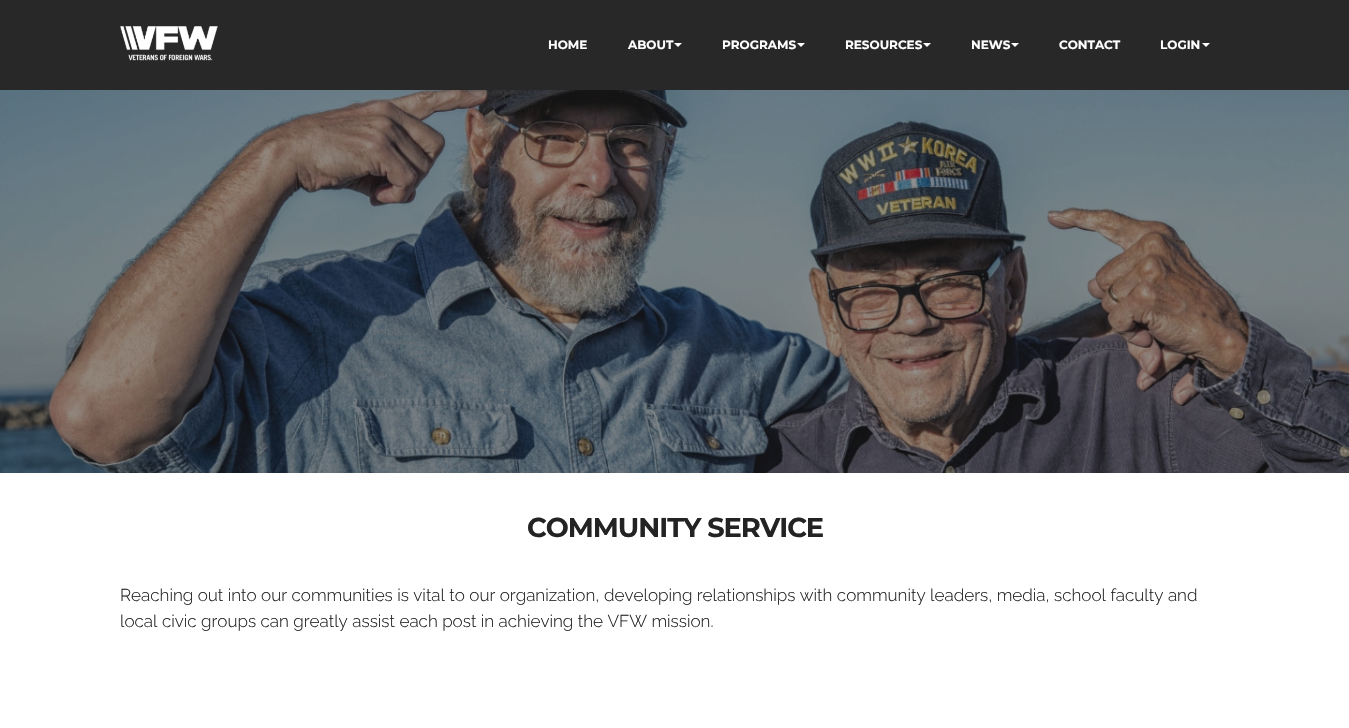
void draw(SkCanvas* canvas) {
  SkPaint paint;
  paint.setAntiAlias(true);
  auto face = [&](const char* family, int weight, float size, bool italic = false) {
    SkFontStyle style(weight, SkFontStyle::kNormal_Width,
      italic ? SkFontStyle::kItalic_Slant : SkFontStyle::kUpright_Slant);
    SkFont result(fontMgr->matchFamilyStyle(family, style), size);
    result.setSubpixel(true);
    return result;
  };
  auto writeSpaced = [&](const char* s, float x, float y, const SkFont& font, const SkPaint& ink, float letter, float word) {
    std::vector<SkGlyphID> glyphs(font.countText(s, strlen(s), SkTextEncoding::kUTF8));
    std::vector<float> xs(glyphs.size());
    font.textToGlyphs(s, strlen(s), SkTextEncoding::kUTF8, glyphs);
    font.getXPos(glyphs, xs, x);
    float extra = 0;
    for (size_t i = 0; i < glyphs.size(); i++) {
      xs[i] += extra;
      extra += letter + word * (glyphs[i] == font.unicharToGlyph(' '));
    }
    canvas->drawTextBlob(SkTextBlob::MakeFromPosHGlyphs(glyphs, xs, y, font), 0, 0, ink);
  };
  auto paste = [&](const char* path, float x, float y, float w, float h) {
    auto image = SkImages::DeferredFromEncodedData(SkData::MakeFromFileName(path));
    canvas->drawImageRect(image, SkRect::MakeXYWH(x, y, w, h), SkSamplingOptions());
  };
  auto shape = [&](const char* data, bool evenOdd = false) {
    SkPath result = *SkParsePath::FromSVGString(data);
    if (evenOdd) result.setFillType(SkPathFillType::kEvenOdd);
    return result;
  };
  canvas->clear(0xffffffff);
  paint.setColor(0xff282828);
  canvas->drawRect(SkRect::MakeXYWH(0, 0, 1349, 90), paint);
  paste("img/1.png", 120, 26, 98, 35);
  paint.setColor(0xffffffff);
  canvas->drawPath(shape("M674 43H682L678 47Z"), paint);
  canvas->drawPath(shape("M797 43H805L801 47Z"), paint);
  canvas->drawPath(shape("M923 43H931L927 47Z"), paint);
  canvas->drawPath(shape("M1011 43H1019L1015 47Z"), paint);
  canvas->drawPath(shape("M1202 43H1210L1206 47Z"), paint);
  paste("img/2.png", 0, 90, 1349, 383);
  auto f0 = face("Montserrat", 700, 12);
  {
    const struct { const char* s; float x, y; } items[] = {
      {"HOME", 548, 49},
      {"ABOUT", 628, 49},
      {"PROGRAMS", 722, 49},
      {"RESOURCES", 845, 49},
      {"NEWS", 971, 49},
      {"CONTACT", 1059, 49},
      {"LOGIN", 1160, 49},
    };
    for (auto [s, x, y] : items) {
      canvas->drawString(s, x, y, f0, paint);
    }
  }
  auto f1 = face("Montserrat", 700, 27.25f);
  paint.setColor(0xff232323);
  writeSpaced("COMMUNITY SERVICE", 527, 537, f1, paint, -1, 0);
  auto f2 = face("Raleway", 300, 17.1f);
  {
    const struct { const char* s; float x, y; } items[] = {
      {"Reaching out into our communities is vital to our organization,", 120, 601},
      {"developing relationships with community leaders, media, school faculty and", 604, 601},
      {"local civic groups can greatly assist each post in achieving the VFW mission.", 120, 627},
    };
    for (auto [s, x, y] : items) {
      canvas->drawString(s, x, y, f2, paint);
    }
  }
}
